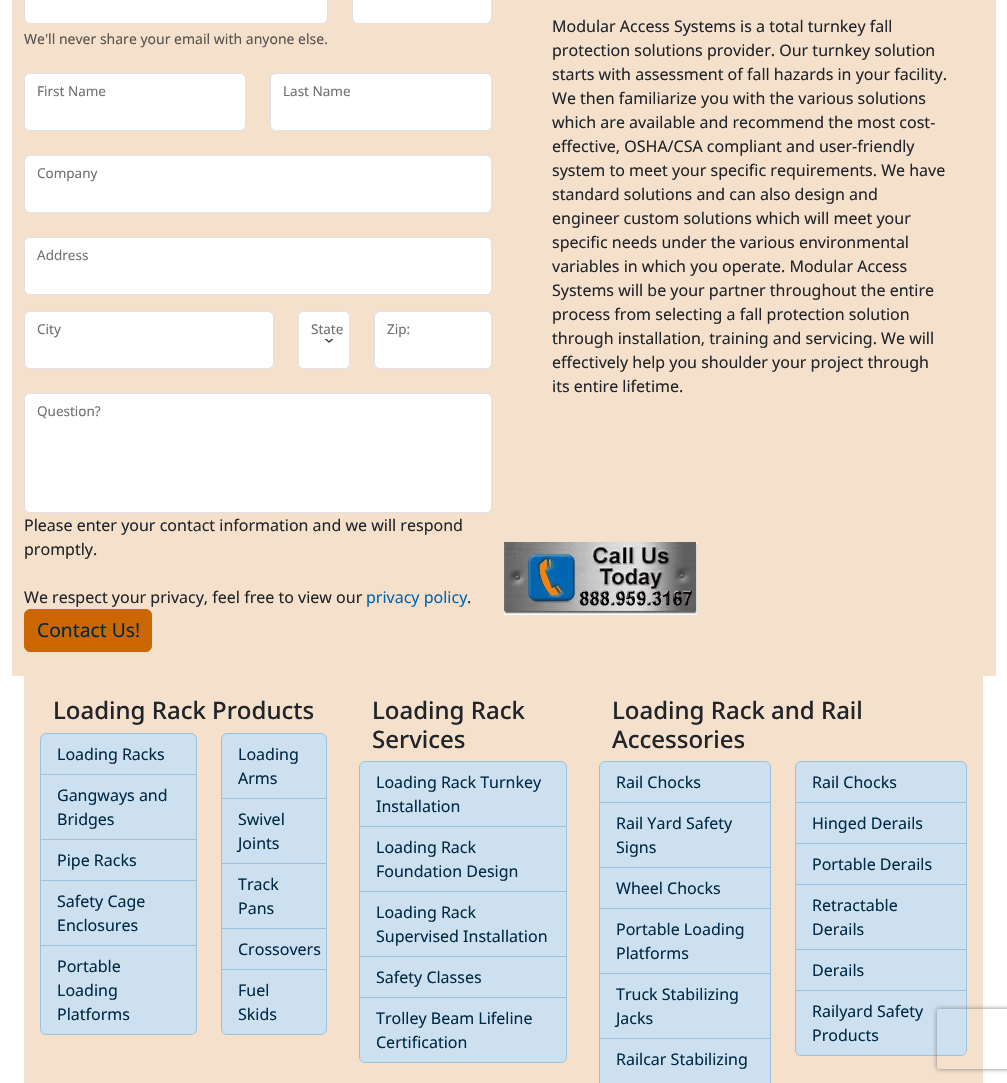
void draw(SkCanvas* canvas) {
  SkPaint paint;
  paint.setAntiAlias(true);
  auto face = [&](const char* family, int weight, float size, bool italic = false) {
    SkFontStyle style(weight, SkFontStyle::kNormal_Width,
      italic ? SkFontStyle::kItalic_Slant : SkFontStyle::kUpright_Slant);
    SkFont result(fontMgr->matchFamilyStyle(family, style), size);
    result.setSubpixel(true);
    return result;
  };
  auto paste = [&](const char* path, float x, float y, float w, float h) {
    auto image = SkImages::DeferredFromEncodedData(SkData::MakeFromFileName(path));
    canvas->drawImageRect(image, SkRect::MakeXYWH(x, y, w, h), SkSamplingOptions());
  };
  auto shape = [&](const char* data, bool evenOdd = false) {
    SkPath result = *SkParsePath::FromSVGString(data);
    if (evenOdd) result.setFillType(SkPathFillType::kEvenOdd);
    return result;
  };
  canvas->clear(0xffffffff);
  paint.setColor(0xfff5e0cc);
  canvas->drawRect(SkRect::MakeXYWH(12, 0, 984, 676), paint);
  paint.setColor(0xffffffff);
  canvas->drawRoundRect(SkRect::MakeXYWH(353, -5, 138, 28), 5, 5, paint);
  paint.setStroke(true);
  paint.setStrokeWidth(1);
  paint.setColor(0xffdee2e6);
  canvas->drawRoundRect(SkRect::MakeXYWH(352.5f, -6.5f, 139, 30), 5.5f, 5.5f, paint);
  paint.setStroke(false);
  paint.setColor(0xffffffff);
  canvas->drawRoundRect(SkRect::MakeXYWH(25, -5, 302, 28), 5, 5, paint);
  paint.setStroke(true);
  paint.setColor(0xffdee2e6);
  canvas->drawRoundRect(SkRect::MakeXYWH(24.5f, -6.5f, 303, 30), 5.5f, 5.5f, paint);
  paint.setStroke(false);
  paint.setColor(0xffffffff);
  canvas->drawRoundRect(SkRect::MakeXYWH(24.5f, 73.5f, 221, 57), 5.5f, 5.5f, paint);
  paint.setStroke(true);
  paint.setColor(0xffdee2e6);
  canvas->drawRoundRect(SkRect::MakeXYWH(24.5f, 73.5f, 221, 57), 5.5f, 5.5f, paint);
  paint.setStroke(false);
  paint.setColor(0xffffffff);
  canvas->drawRoundRect(SkRect::MakeXYWH(270.5f, 73.5f, 221, 57), 5.5f, 5.5f, paint);
  paint.setStroke(true);
  paint.setColor(0xffdee2e6);
  canvas->drawRoundRect(SkRect::MakeXYWH(270.5f, 73.5f, 221, 57), 5.5f, 5.5f, paint);
  paint.setStroke(false);
  paint.setColor(0xffffffff);
  canvas->drawRoundRect(SkRect::MakeXYWH(24.5f, 155.5f, 467, 57), 5.5f, 5.5f, paint);
  paint.setStroke(true);
  paint.setColor(0xffdee2e6);
  canvas->drawRoundRect(SkRect::MakeXYWH(24.5f, 155.5f, 467, 57), 5.5f, 5.5f, paint);
  paint.setStroke(false);
  paint.setColor(0xffffffff);
  canvas->drawRoundRect(SkRect::MakeXYWH(24.5f, 237.5f, 467, 57), 5.5f, 5.5f, paint);
  paint.setStroke(true);
  paint.setColor(0xffdee2e6);
  canvas->drawRoundRect(SkRect::MakeXYWH(24.5f, 237.5f, 467, 57), 5.5f, 5.5f, paint);
  paint.setStroke(false);
  paint.setColor(0xffffffff);
  canvas->drawRoundRect(SkRect::MakeXYWH(24.5f, 311.5f, 249, 57), 5.5f, 5.5f, paint);
  paint.setStroke(true);
  paint.setColor(0xffdee2e6);
  canvas->drawRoundRect(SkRect::MakeXYWH(24.5f, 311.5f, 249, 57), 5.5f, 5.5f, paint);
  paint.setStroke(false);
  paint.setColor(0xffffffff);
  canvas->drawRoundRect(SkRect::MakeXYWH(298, 311, 52, 58), 6, 6, paint);
  paint.setStroke(true);
  paint.setStrokeWidth(1.5f);
  paint.setStrokeCap(SkPaint::kRound_Cap);
  paint.setStrokeJoin(SkPaint::kRound_Join);
  paint.setColor(0xff343a40);
  canvas->drawPath(shape("M324.5 338L329 342L333.5 338"), paint);
  paint.setStrokeWidth(1);
  paint.setStrokeCap(SkPaint::kButt_Cap);
  paint.setStrokeJoin(SkPaint::kMiter_Join);
  paint.setColor(0xffdee2e6);
  canvas->drawRoundRect(SkRect::MakeXYWH(298.5f, 311.5f, 51, 57), 5.5f, 5.5f, paint);
  paint.setStroke(false);
  paint.setColor(0xffffffff);
  canvas->drawRoundRect(SkRect::MakeXYWH(305, 319, 43, 20), 5, 5, paint);
  canvas->drawRoundRect(SkRect::MakeXYWH(374.5f, 311.5f, 117, 57), 5.5f, 5.5f, paint);
  paint.setStroke(true);
  paint.setColor(0xffdee2e6);
  canvas->drawRoundRect(SkRect::MakeXYWH(374.5f, 311.5f, 117, 57), 5.5f, 5.5f, paint);
  paint.setStroke(false);
  paint.setColor(0xffffffff);
  canvas->drawRoundRect(SkRect::MakeXYWH(24.5f, 393.5f, 467, 119), 5.5f, 5.5f, paint);
  paint.setStroke(true);
  paint.setColor(0xffdee2e6);
  canvas->drawRoundRect(SkRect::MakeXYWH(24.5f, 393.5f, 467, 119), 5.5f, 5.5f, paint);
  paint.setStroke(false);
  paint.setColor(0xffcc6601);
  canvas->drawRoundRect(SkRect::MakeXYWH(24.5f, 609.5f, 127, 42), 5.5f, 5.5f, paint);
  paint.setStroke(true);
  canvas->drawRoundRect(SkRect::MakeXYWH(24.5f, 609.5f, 127, 42), 5.5f, 5.5f, paint);
  paste("img/1.png", 504, 542, 193, 73);
  paint.setStroke(false);
  paint.setColor(0xfff5e0cc);
  canvas->drawRect(SkRect::MakeXYWH(24, 676, 959, 407), paint);
  paint.setColor(0xffcce0ef);
  canvas->drawPath(shape("M46 733.5H191C194 733.5 196.5 736 196.5 739V774.5H40.5V739C40.5 736 43 733.5 46 733.5Z"), paint);
  paint.setStroke(true);
  paint.setColor(0xff99c2df);
  canvas->drawPath(shape("M46 733.5H191C194 733.5 196.5 736 196.5 739V774.5H40.5V739C40.5 736 43 733.5 46 733.5Z"), paint);
  paint.setStroke(false);
  {
    const struct { float x, y, w, h; SkColor color; } items[] = {
      {41, 775, 155, 64, 0xffcce0ef},
      {196, 775, 1, 171, 0xff99c2df},
      {40, 839, 157, 1, 0xff99c2df},
      {40, 775, 1, 65, 0xff99c2df},
      {41, 840, 155, 40, 0xffcce0ef},
      {40, 880, 157, 1, 0xff99c2df},
      {40, 840, 1, 41, 0xff99c2df},
      {41, 881, 155, 64, 0xffcce0ef},
      {40, 945, 157, 1, 0xff99c2df},
      {40, 881, 1, 65, 0xff99c2df},
    };
    for (auto [x, y, w, h, color] : items) {
      paint.setColor(color);
      canvas->drawRect(SkRect::MakeXYWH(x, y, w, h), paint);
    }
  }
  paint.setColor(0xffcce0ef);
  canvas->drawPath(shape("M41 946H196V1029C196 1032 194 1034 191 1034H46C43 1034 41 1032 41 1029Z"), paint);
  paint.setColor(0xff99c2df);
  canvas->drawPath(shape("M40 946H197V1029C197 1032 194 1035 191 1035H46C43 1035 40 1032 40 1029ZM41 946H196V1029C196 1032 194 1034 191 1034H46C43 1034 41 1032 41 1029Z", true), paint);
  paint.setColor(0xffcce0ef);
  canvas->drawPath(shape("M227 733.5H321C324 733.5 326.5 736 326.5 739V798.5H221.5V739C221.5 736 224 733.5 227 733.5Z"), paint);
  paint.setStroke(true);
  paint.setColor(0xff99c2df);
  canvas->drawPath(shape("M227 733.5H321C324 733.5 326.5 736 326.5 739V798.5H221.5V739C221.5 736 224 733.5 227 733.5Z"), paint);
  paint.setStroke(false);
  {
    const struct { float x, y, w, h; SkColor color; } items[] = {
      {222, 799, 104, 64, 0xffcce0ef},
      {326, 799, 1, 171, 0xff99c2df},
      {221, 863, 106, 1, 0xff99c2df},
      {221, 799, 1, 65, 0xff99c2df},
      {222, 864, 104, 64, 0xffcce0ef},
      {221, 928, 106, 1, 0xff99c2df},
      {221, 864, 1, 65, 0xff99c2df},
      {222, 929, 104, 40, 0xffcce0ef},
      {221, 969, 106, 1, 0xff99c2df},
      {221, 929, 1, 41, 0xff99c2df},
    };
    for (auto [x, y, w, h, color] : items) {
      paint.setColor(color);
      canvas->drawRect(SkRect::MakeXYWH(x, y, w, h), paint);
    }
  }
  paint.setColor(0xffcce0ef);
  canvas->drawPath(shape("M222 970H326V1029C326 1032 324 1034 321 1034H227C224 1034 222 1032 222 1029Z"), paint);
  paint.setColor(0xff99c2df);
  canvas->drawPath(shape("M221 970H327V1029C327 1032 324 1035 321 1035H227C224 1035 221 1032 221 1029ZM222 970H326V1029C326 1032 324 1034 321 1034H227C224 1034 222 1032 222 1029Z", true), paint);
  paint.setColor(0xffcce0ef);
  canvas->drawPath(shape("M365 761.5H561C564 761.5 566.5 764 566.5 767V826.5H359.5V767C359.5 764 362 761.5 365 761.5Z"), paint);
  paint.setStroke(true);
  paint.setColor(0xff99c2df);
  canvas->drawPath(shape("M365 761.5H561C564 761.5 566.5 764 566.5 767V826.5H359.5V767C359.5 764 362 761.5 365 761.5Z"), paint);
  paint.setStroke(false);
  {
    const struct { float x, y, w, h; SkColor color; } items[] = {
      {360, 827, 206, 64, 0xffcce0ef},
      {566, 827, 1, 171, 0xff99c2df},
      {359, 891, 208, 1, 0xff99c2df},
      {359, 827, 1, 65, 0xff99c2df},
      {360, 892, 206, 64, 0xffcce0ef},
      {359, 956, 208, 1, 0xff99c2df},
      {359, 892, 1, 65, 0xff99c2df},
      {360, 957, 206, 40, 0xffcce0ef},
      {359, 997, 208, 1, 0xff99c2df},
      {359, 957, 1, 41, 0xff99c2df},
    };
    for (auto [x, y, w, h, color] : items) {
      paint.setColor(color);
      canvas->drawRect(SkRect::MakeXYWH(x, y, w, h), paint);
    }
  }
  paint.setColor(0xffcce0ef);
  canvas->drawPath(shape("M360 998H566V1057C566 1060 564 1062 561 1062H365C362 1062 360 1060 360 1057Z"), paint);
  paint.setColor(0xff99c2df);
  canvas->drawPath(shape("M359 998H567V1057C567 1060 564 1063 561 1063H365C362 1063 359 1060 359 1057ZM360 998H566V1057C566 1060 564 1062 561 1062H365C362 1062 360 1060 360 1057Z", true), paint);
  paint.setColor(0xffcce0ef);
  canvas->drawPath(shape("M605 761.5H765C768 761.5 770.5 764 770.5 767V802.5H599.5V767C599.5 764 602 761.5 605 761.5Z"), paint);
  paint.setStroke(true);
  paint.setColor(0xff99c2df);
  canvas->drawPath(shape("M605 761.5H765C768 761.5 770.5 764 770.5 767V802.5H599.5V767C599.5 764 602 761.5 605 761.5Z"), paint);
  paint.setStroke(false);
  {
    const struct { float x, y, w, h; SkColor color; } items[] = {
      {600, 803, 170, 64, 0xffcce0ef},
      {770, 803, 1, 236, 0xff99c2df},
      {599, 867, 172, 1, 0xff99c2df},
      {599, 803, 1, 65, 0xff99c2df},
      {600, 868, 170, 40, 0xffcce0ef},
      {599, 908, 172, 1, 0xff99c2df},
      {599, 868, 1, 41, 0xff99c2df},
      {600, 909, 170, 64, 0xffcce0ef},
      {599, 973, 172, 1, 0xff99c2df},
      {599, 909, 1, 65, 0xff99c2df},
      {600, 974, 170, 64, 0xffcce0ef},
      {599, 1038, 172, 1, 0xff99c2df},
      {599, 974, 1, 65, 0xff99c2df},
      {600, 1039, 170, 44, 0xffcce0ef},
    };
    for (auto [x, y, w, h, color] : items) {
      paint.setColor(color);
      canvas->drawRect(SkRect::MakeXYWH(x, y, w, h), paint);
    }
  }
  paint.setColor(0xff99c2df);
  canvas->drawPath(shape("M599 1039H771V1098C771 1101 768 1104 765 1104H605C602 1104 599 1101 599 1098ZM600 1039H770V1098C770 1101 768 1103 765 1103H605C602 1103 600 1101 600 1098Z", true), paint);
  paint.setColor(0xffcce0ef);
  canvas->drawPath(shape("M801 761.5H961C964 761.5 966.5 764 966.5 767V802.5H795.5V767C795.5 764 798 761.5 801 761.5Z"), paint);
  paint.setStroke(true);
  paint.setColor(0xff99c2df);
  canvas->drawPath(shape("M801 761.5H961C964 761.5 966.5 764 966.5 767V802.5H795.5V767C795.5 764 798 761.5 801 761.5Z"), paint);
  paint.setStroke(false);
  {
    const struct { float x, y, w, h; SkColor color; } items[] = {
      {796, 803, 170, 40, 0xffcce0ef},
      {966, 803, 1, 188, 0xff99c2df},
      {795, 843, 172, 1, 0xff99c2df},
      {795, 803, 1, 41, 0xff99c2df},
      {796, 844, 170, 40, 0xffcce0ef},
      {795, 884, 172, 1, 0xff99c2df},
      {795, 844, 1, 41, 0xff99c2df},
      {796, 885, 170, 64, 0xffcce0ef},
      {795, 949, 172, 1, 0xff99c2df},
      {795, 885, 1, 65, 0xff99c2df},
      {796, 950, 170, 40, 0xffcce0ef},
      {795, 990, 172, 1, 0xff99c2df},
      {795, 950, 1, 41, 0xff99c2df},
    };
    for (auto [x, y, w, h, color] : items) {
      paint.setColor(color);
      canvas->drawRect(SkRect::MakeXYWH(x, y, w, h), paint);
    }
  }
  paint.setColor(0xffcce0ef);
  canvas->drawPath(shape("M796 991H966V1050C966 1053 964 1055 961 1055H801C798 1055 796 1053 796 1050Z"), paint);
  paint.setColor(0xff99c2df);
  canvas->drawPath(shape("M795 991H967V1050C967 1053 964 1056 961 1056H801C798 1056 795 1053 795 1050ZM796 991H966V1050C966 1053 964 1055 961 1055H801C798 1055 796 1053 796 1050Z", true), paint);
  canvas->save();
  canvas->clipPath(shape("M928 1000H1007V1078H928ZM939 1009H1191C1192 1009 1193 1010 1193 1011V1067C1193 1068 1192 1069 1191 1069H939C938 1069 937 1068 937 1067V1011C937 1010 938 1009 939 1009Z", true), true);
  paint.setColor(0xff808080);
  paint.setMaskFilter(SkMaskFilter::MakeBlur(kNormal_SkBlurStyle, 2.5f));
  canvas->drawRoundRect(SkRect::MakeXYWH(937, 1009, 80, 60), 2, 2, paint);
  paint.setMaskFilter(nullptr);
  canvas->restore();
  auto f0 = face("Noto Sans", 400, 14);
  paint.setColor(0xff565452);
  canvas->drawString("We'll never share your email with anyone else.", 24, 44, f0, paint);
  auto f1 = face("Noto Sans", 400, 13.5f);
  paint.setColor(0xff6f7174);
  {
    const struct { const char* s; float x, y; } items[] = {
      {"First Name", 37, 96},
      {"Last Name", 283, 96},
      {"Company", 37, 178},
      {"Address", 37, 260},
      {"City", 37, 334},
      {"State", 311, 334},
      {"Zip:", 387, 334},
      {"Question?", 37, 416},
    };
    for (auto [s, x, y] : items) {
      canvas->drawString(s, x, y, f1, paint);
    }
  }
  auto f2 = face("Noto Sans", 400, 16);
  paint.setColor(0xff212529);
  {
    const struct { const char* s; float x, y; } items[] = {
      {"Modular Access Systems is a total turnkey fall", 552, 32},
      {"protection solutions provider. Our turnkey solution", 552, 56},
      {"starts with assessment of fall hazards in your facility.", 552, 80},
      {"We then familiarize you with the various solutions", 552, 104},
      {"which are available and recommend the most cost-", 552, 128},
      {"effective, OSHA/CSA compliant and user-friendly", 552, 152},
      {"system to meet your specific requirements. We have", 552, 176},
      {"standard solutions and can also design and", 552, 200},
      {"engineer custom solutions which will meet your", 552, 224},
      {"specific needs under the various environmental", 552, 248},
      {"variables in which you operate. Modular Access", 552, 272},
      {"Systems will be your partner throughout the entire", 552, 296},
      {"process from selecting a fall protection solution", 552, 320},
      {"through installation, training and servicing. We will", 552, 344},
      {"effectively help you shoulder your project through", 552, 368},
      {"its entire lifetime.", 552, 392},
      {"Please enter your contact information and we will respond", 24, 531},
      {"promptly.", 24, 555},
      {"We respect your privacy, feel free to view our", 24, 603},
    };
    for (auto [s, x, y] : items) {
      canvas->drawString(s, x, y, f2, paint);
    }
  }
  paint.setColor(0xff0066b0);
  canvas->drawString("privacy policy", 366, 603, f2, paint);
  paint.setColor(0xff212529);
  canvas->drawString(".", 467, 603, f2, paint);
  auto f3 = face("Noto Sans", 400, 19.25f);
  paint.setColor(0xff002946);
  canvas->drawString("Contact Us!", 37, 637, f3, paint);
  auto f4 = face("Noto Sans", 500, 24);
  paint.setColor(0xff212529);
  canvas->drawString("Loading Rack Products", 53, 719, f4, paint);
  paint.setColor(0xff002946);
  {
    const struct { const char* s; float x, y; } items[] = {
      {"Loading Racks", 57, 760},
      {"Gangways and", 57, 801},
      {"Bridges", 57, 825},
      {"Pipe Racks", 57, 866},
      {"Safety Cage", 57, 907},
      {"Enclosures", 57, 931},
      {"Portable", 57, 972},
      {"Loading", 57, 996},
      {"Platforms", 57, 1020},
      {"Loading", 238, 760},
      {"Arms", 238, 784},
      {"Swivel", 238, 825},
      {"Joints", 238, 849},
      {"Track", 238, 890},
      {"Pans", 238, 914},
      {"Crossovers", 238, 955},
      {"Fuel", 238, 996},
      {"Skids", 238, 1020},
    };
    for (auto [s, x, y] : items) {
      canvas->drawString(s, x, y, f2, paint);
    }
  }
  paint.setColor(0xff212529);
  canvas->drawString("Loading Rack", 372, 719, f4, paint);
  canvas->drawString("Services", 372, 748, f4, paint);
  paint.setColor(0xff002946);
  {
    const struct { const char* s; float x, y; } items[] = {
      {"Loading Rack Turnkey", 376, 788},
      {"Installation", 376, 812},
      {"Loading Rack", 376, 853},
      {"Foundation Design", 376, 877},
      {"Loading Rack", 376, 918},
      {"Supervised Installation", 376, 942},
      {"Safety Classes", 376, 983},
      {"Trolley Beam Lifeline", 376, 1024},
      {"Certification", 376, 1048},
    };
    for (auto [s, x, y] : items) {
      canvas->drawString(s, x, y, f2, paint);
    }
  }
  paint.setColor(0xff212529);
  canvas->drawString("Loading Rack and Rail", 612, 719, f4, paint);
  canvas->drawString("Accessories", 612, 748, f4, paint);
  paint.setColor(0xff002946);
  {
    const struct { const char* s; float x, y; } items[] = {
      {"Rail Chocks", 616, 788},
      {"Rail Yard Safety", 616, 829},
      {"Signs", 616, 853},
      {"Wheel Chocks", 616, 894},
      {"Portable Loading", 616, 935},
      {"Platforms", 616, 959},
      {"Truck Stabilizing", 616, 1000},
      {"Jacks", 616, 1024},
      {"Railcar Stabilizing", 616, 1065},
      {"Rail Chocks", 812, 788},
      {"Hinged Derails", 812, 829},
      {"Portable Derails", 812, 870},
      {"Retractable", 812, 911},
      {"Derails", 812, 935},
      {"Derails", 812, 976},
      {"Railyard Safety", 812, 1017},
      {"Products", 812, 1041},
    };
    for (auto [s, x, y] : items) {
      canvas->drawString(s, x, y, f2, paint);
    }
  }
}
